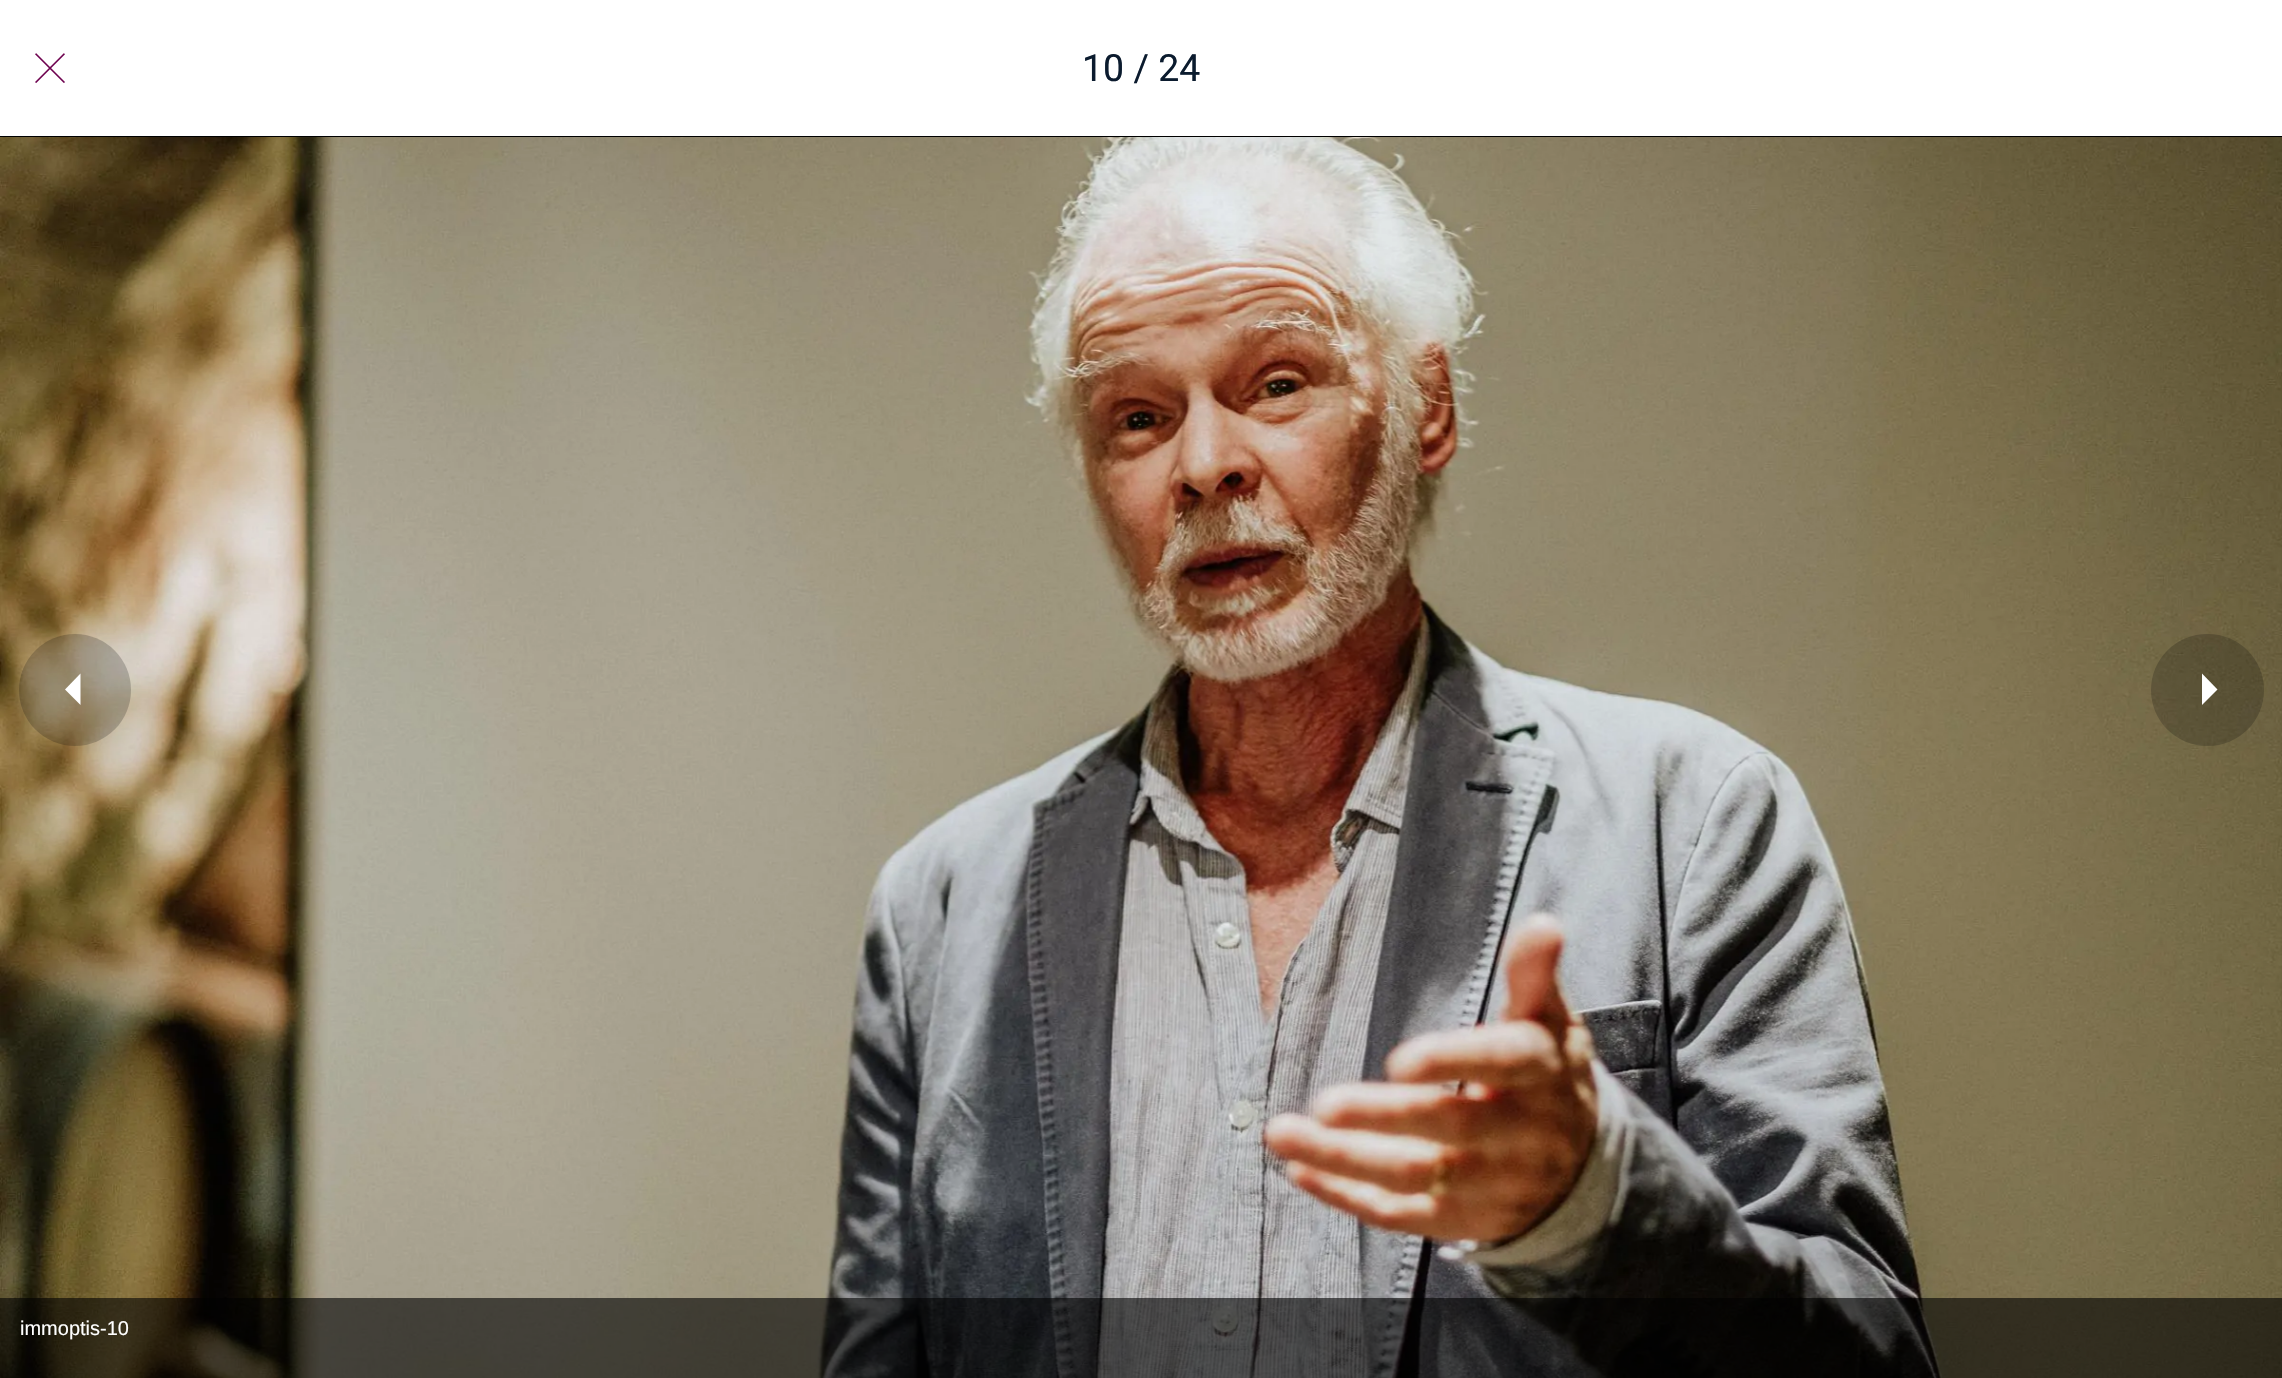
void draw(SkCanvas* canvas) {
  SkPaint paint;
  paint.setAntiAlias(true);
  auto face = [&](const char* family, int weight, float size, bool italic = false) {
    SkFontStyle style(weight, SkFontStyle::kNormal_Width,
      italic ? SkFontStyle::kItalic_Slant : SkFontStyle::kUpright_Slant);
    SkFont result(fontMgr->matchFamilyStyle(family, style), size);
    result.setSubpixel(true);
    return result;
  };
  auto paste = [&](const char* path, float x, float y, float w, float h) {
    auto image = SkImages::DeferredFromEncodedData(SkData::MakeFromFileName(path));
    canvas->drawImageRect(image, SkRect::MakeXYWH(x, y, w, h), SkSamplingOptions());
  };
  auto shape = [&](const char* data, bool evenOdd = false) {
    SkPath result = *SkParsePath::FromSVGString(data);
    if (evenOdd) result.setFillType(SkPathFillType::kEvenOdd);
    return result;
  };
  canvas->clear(0xff000000);
  paint.setColor(0xffffffff);
  canvas->drawRect(SkRect::MakeXYWH(0, 0, 2282, 136), paint);
  paste("img/1.png", 35, 53, 30, 30);
  paste("img/2.png", 0, 137, 2282, 1241);
  paint.setColor(0x33000000);
  canvas->drawCircle(75, 690, 56, paint);
  paint.setColor(0xffffffff);
  canvas->drawPath(shape("M80.5 673.5L65 689.5L80.5 705V674Z"), paint);
  paint.setColor(0x33000000);
  canvas->drawRoundRect(SkRect::MakeXYWH(2151, 634, 113, 112), 56, 56, paint);
  paint.setColor(0xffffffff);
  canvas->drawPath(shape("M2202 705L2217.5 689.5L2202 673.5Z"), paint);
  paint.setColor(0x99000000);
  canvas->drawRect(SkRect::MakeXYWH(0, 1298, 2282, 80), paint);
  auto f0 = face("Roboto", 400, 37.5f);
  paint.setColor(0xff0b1b2e);
  canvas->drawString("10 / 24", 1082, 81, f0, paint);
  auto f1 = face("Liberation Sans", 400, 20);
  paint.setColor(0xffffffff);
  canvas->drawString("immoptis-10", 20, 1335, f1, paint);
}
